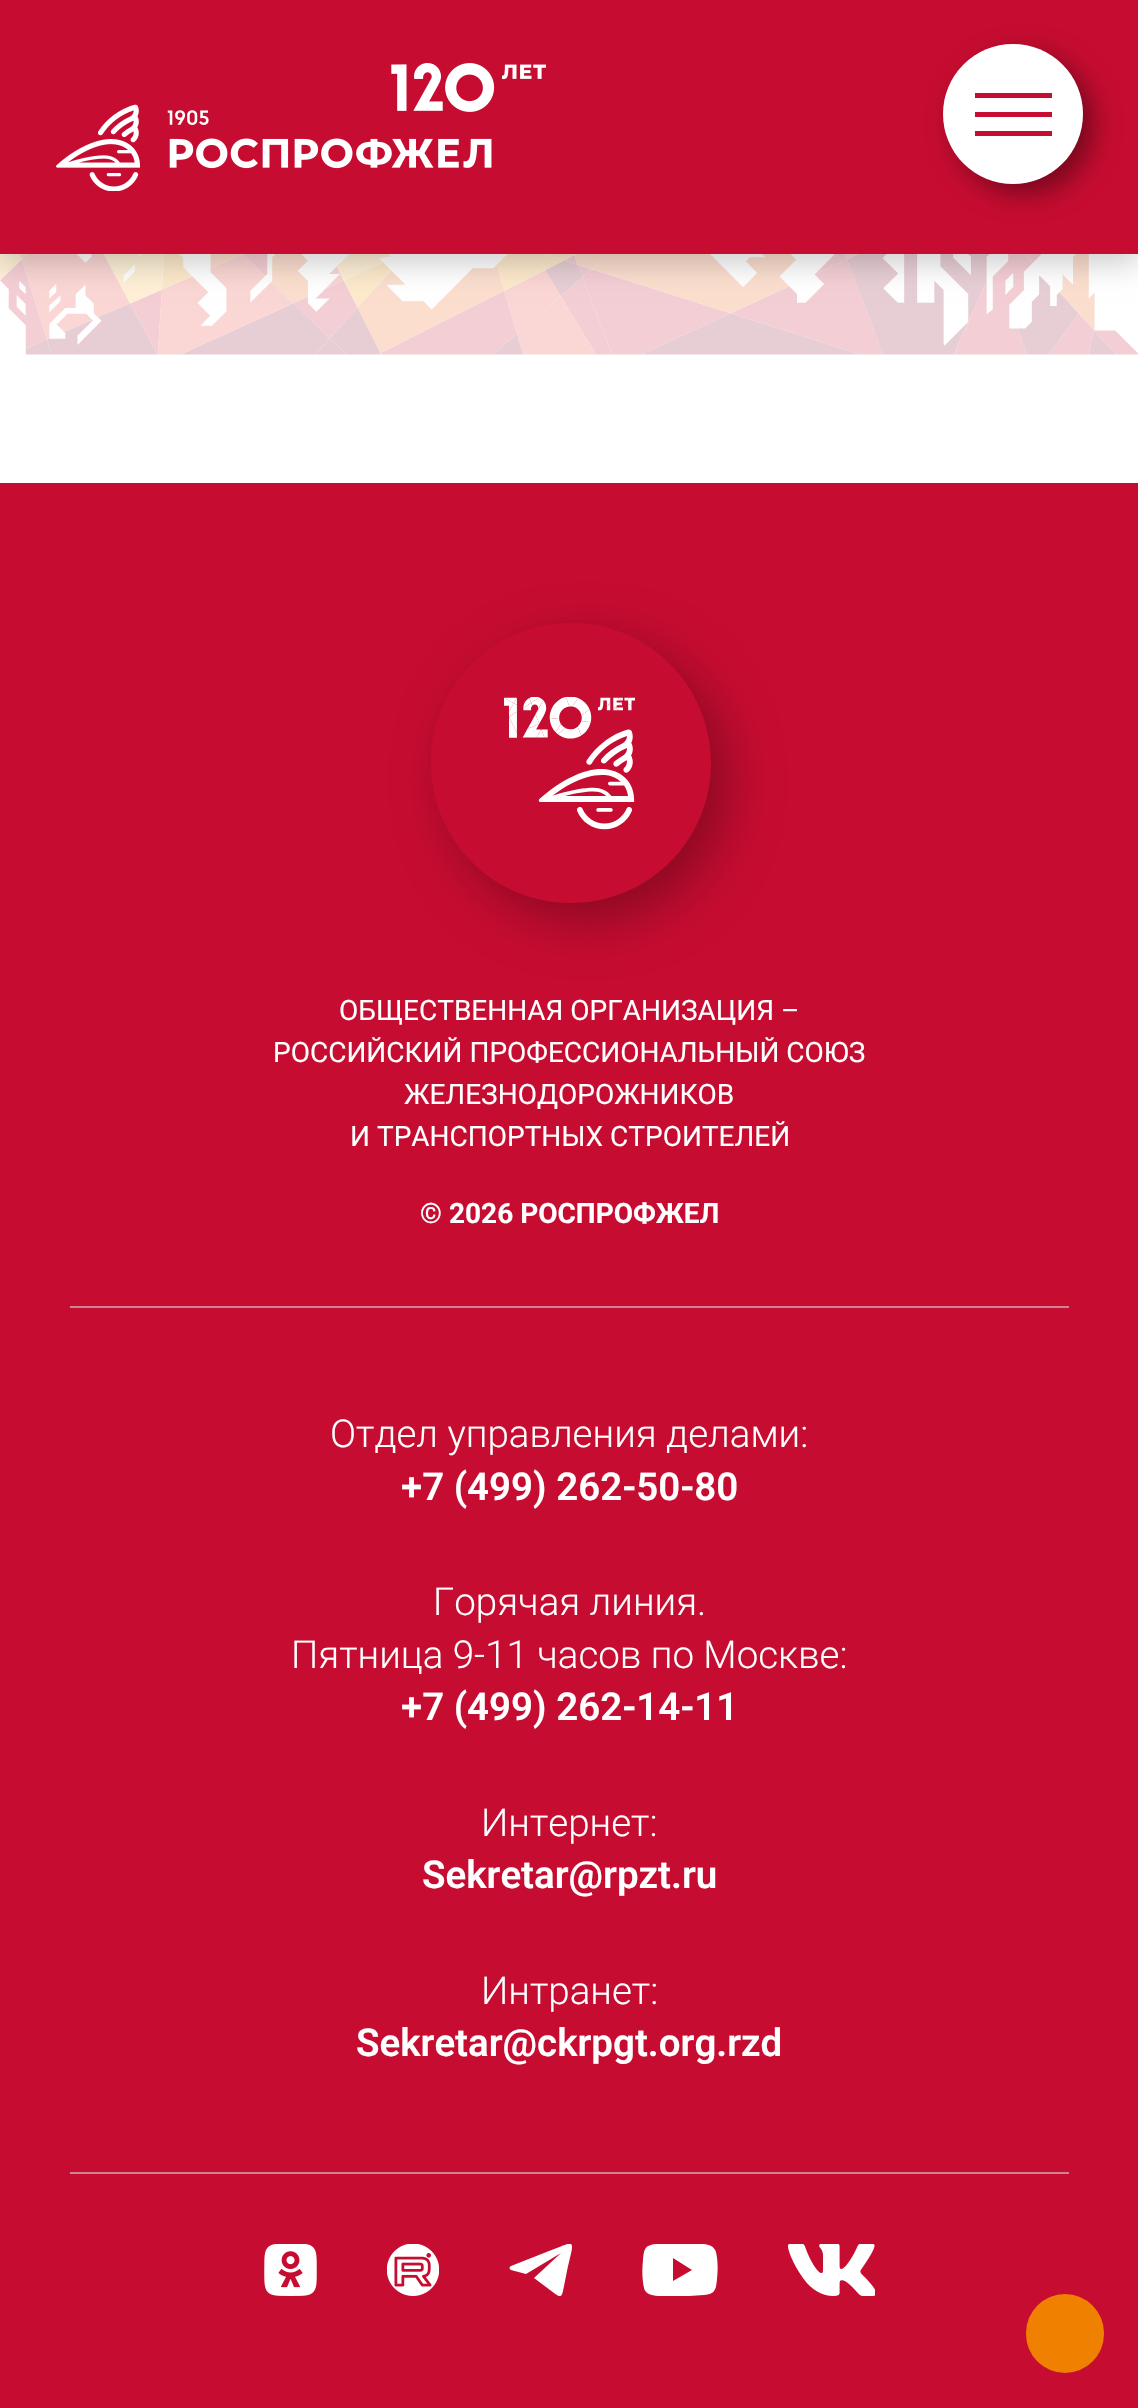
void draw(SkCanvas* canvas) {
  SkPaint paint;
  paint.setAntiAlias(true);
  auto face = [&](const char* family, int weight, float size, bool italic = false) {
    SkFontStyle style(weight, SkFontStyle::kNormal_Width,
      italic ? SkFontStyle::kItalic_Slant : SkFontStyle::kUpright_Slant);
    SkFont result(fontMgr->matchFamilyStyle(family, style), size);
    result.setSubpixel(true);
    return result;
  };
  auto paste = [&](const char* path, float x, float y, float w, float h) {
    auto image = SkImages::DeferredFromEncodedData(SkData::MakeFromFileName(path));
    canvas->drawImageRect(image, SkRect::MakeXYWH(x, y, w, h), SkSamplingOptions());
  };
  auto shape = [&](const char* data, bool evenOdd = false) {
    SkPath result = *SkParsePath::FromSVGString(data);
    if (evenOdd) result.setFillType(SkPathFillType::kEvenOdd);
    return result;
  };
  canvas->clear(0xffffffff);
  paint.setColor(0xffc60c30);
  canvas->drawRect(SkRect::MakeXYWH(0, 0, 1138, 254), paint);
  paste("img/2.png", 0, 254, 1138, 101);
  canvas->save();
  canvas->clipPath(shape("M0 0H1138V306H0ZM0 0H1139V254H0Z", true), true);
  paint.setColor(0x33000000);
  paint.setMaskFilter(SkMaskFilter::MakeBlur(kNormal_SkBlurStyle, 14));
  canvas->drawRect(SkRect::MakeXYWH(0, 9, 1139, 254), paint);
  paint.setMaskFilter(nullptr);
  canvas->restore();
  paste("img/1.png", 56, 63, 490, 128);
  paint.setColor(0x66000000);
  paint.setMaskFilter(SkMaskFilter::MakeBlur(kNormal_SkBlurStyle, 13));
  canvas->drawRoundRect(SkRect::MakeXYWH(954, 54, 140, 140), 70, 70, paint);
  paint.setMaskFilter(nullptr);
  paint.setColor(0xffffffff);
  canvas->drawCircle(1013, 114, 70, paint);
  {
    const struct { float x, y, w, h; SkColor color; } items[] = {
      {975, 112, 77, 5, 0xffc60c30},
      {975, 93, 77, 5, 0xffc60c30},
      {975, 131, 77, 5, 0xffc60c30},
      {0, 483, 1138, 1925, 0xffc60c30},
    };
    for (auto [x, y, w, h, color] : items) {
      paint.setColor(color);
      canvas->drawRect(SkRect::MakeXYWH(x, y, w, h), paint);
    }
  }
  canvas->save();
  canvas->clipPath(shape("M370 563H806V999H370ZM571 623C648.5 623 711 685.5 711 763C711 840.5 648.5 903 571 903C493.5 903 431 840.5 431 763C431 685.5 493.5 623 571 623Z", true), true);
  paint.setColor(0x4d000000);
  paint.setMaskFilter(SkMaskFilter::MakeBlur(kNormal_SkBlurStyle, 25.5f));
  canvas->drawRoundRect(SkRect::MakeXYWH(448, 641, 280, 280), 140, 140, paint);
  paint.setMaskFilter(nullptr);
  canvas->restore();
  paste("img/3.png", 504, 697, 131, 133);
  paint.setColor(0xffcd8596);
  canvas->drawRect(SkRect::MakeXYWH(70, 1306, 999, 2), paint);
  canvas->drawRect(SkRect::MakeXYWH(70, 2172, 999, 2), paint);
  paste("img/4.png", 264, 2244, 53, 52);
  paste("img/5.png", 387, 2244, 52, 52);
  canvas->save();
  canvas->clipRect(SkRect::MakeXYWH(509, 2244, 63, 52));
  paint.setColor(0xffffffff);
  canvas->drawPath(shape("M526 2274L561 2253L534 2278L554 2293C562 2299 562 2296 564 2286L567 2271C574 2238 578 2240 549 2251L511 2266C509 2267 509 2269 511 2270Z"), paint);
  canvas->restore();
  canvas->save();
  canvas->clipRect(SkRect::MakeXYWH(642, 2244, 76, 52));
  canvas->drawPath(shape("M716 2252C713 2242 699 2244 692 2244H673H656C645 2245 644 2249 643 2260C642 2269 642 2279 644 2288C646 2298 664 2296 670 2296H689L704 2295C715 2294 716 2290 717 2279C718 2270 718 2261 716 2252ZM673 2281V2258L692 2270Z"), paint);
  canvas->restore();
  paste("img/6.png", 788, 2244, 87, 52);
  paint.setColor(0xffef8000);
  canvas->drawRoundRect(SkRect::MakeXYWH(1026, 2294, 78, 79), 39, 39, paint);
  auto f0 = face("Roboto", 400, 28);
  paint.setColor(0xffffffff);
  {
    const struct { const char* s; float x, y; } items[] = {
      {"ОБЩЕСТВЕННАЯ ОРГАНИЗАЦИЯ –", 339, 1020},
      {"РОССИЙСКИЙ ПРОФЕССИОНАЛЬНЫЙ СОЮЗ", 273, 1062},
      {"ЖЕЛЕЗНОДОРОЖНИКОВ", 404, 1104},
      {"И ТРАНСПОРТНЫХ СТРОИТЕЛЕЙ", 350, 1146},
    };
    for (auto [s, x, y] : items) {
      canvas->drawString(s, x, y, f0, paint);
    }
  }
  auto f1 = face("Roboto", 700, 28);
  canvas->drawString("© 2026 РОСПРОФЖЕЛ", 420, 1223, f1, paint);
  auto f2 = face("Roboto", 300, 38.5f);
  canvas->drawString("Отдел управления делами:", 330, 1447, f2, paint);
  auto f3 = face("Roboto", 600, 38.5f);
  canvas->drawString("+7 (499) 262-50-80", 401, 1500, f3, paint);
  canvas->drawString("Горячая линия.", 433, 1615, f2, paint);
  canvas->drawString("Пятница 9-11 часов по Москве:", 291, 1668, f2, paint);
  canvas->drawString("+7 (499) 262-14-11", 401, 1720, f3, paint);
  canvas->drawString("Интернет:", 481, 1836, f2, paint);
  canvas->drawString("Sekretar@rpzt.ru", 422, 1888, f3, paint);
  canvas->drawString("Интранет:", 481, 2004, f2, paint);
  canvas->drawString("Sekretar@ckrpgt.org.rzd", 356, 2056, f3, paint);
}
